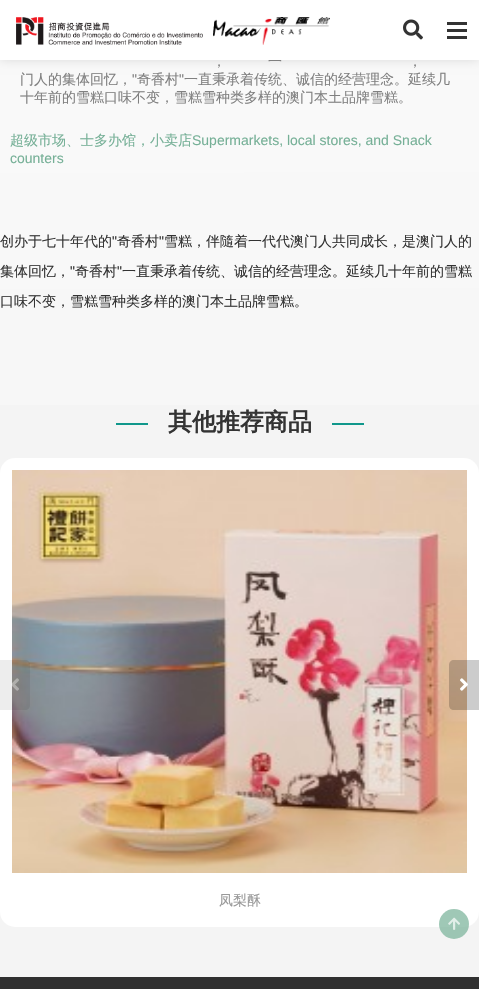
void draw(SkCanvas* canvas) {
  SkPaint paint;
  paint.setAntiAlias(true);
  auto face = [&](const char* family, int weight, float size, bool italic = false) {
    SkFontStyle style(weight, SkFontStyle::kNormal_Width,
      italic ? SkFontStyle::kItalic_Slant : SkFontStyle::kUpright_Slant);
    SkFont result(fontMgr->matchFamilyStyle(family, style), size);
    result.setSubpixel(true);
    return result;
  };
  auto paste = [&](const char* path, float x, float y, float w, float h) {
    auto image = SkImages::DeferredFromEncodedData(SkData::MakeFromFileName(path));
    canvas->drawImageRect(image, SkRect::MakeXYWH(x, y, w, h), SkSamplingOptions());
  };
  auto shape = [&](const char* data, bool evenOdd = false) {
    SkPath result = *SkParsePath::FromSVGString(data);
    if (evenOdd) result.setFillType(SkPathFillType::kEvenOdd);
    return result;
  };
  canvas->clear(0xfff4f4f4);
  {
    const SkColor colors[] = {0xffffffff, 0xfff2f2f2};
    const float stops[] = {0, 1};
    const SkPoint ends[] = {{239, -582}, {240, 927}};
    paint.setShader(SkGradientShader::MakeLinear(ends, colors, stops, 2, SkTileMode::kClamp));
    paint.setAlpha(255);
  }
  canvas->drawRect(SkRect::MakeXYWH(0, 60, 479, 345), paint);
  paint.setShader(nullptr);
  paint.setColor(0x1f000000);
  paint.setMaskFilter(SkMaskFilter::MakeBlur(kNormal_SkBlurStyle, 5));
  canvas->drawRect(SkRect::MakeXYWH(0, 0, 479, 60), paint);
  paint.setMaskFilter(nullptr);
  paint.setColor(0xffffffff);
  canvas->drawRect(SkRect::MakeXYWH(0, 0, 479, 60), paint);
  paste("img/1.png", 16, 17, 187, 28);
  paste("img/2.png", 213, 17, 117, 28);
  paste("img/3.png", 403, 19, 20, 21);
  {
    const struct { float x, y, w, h; SkColor color; } items[] = {
      {447, 22, 20, 3, 0xff333333},
      {447, 29, 20, 3, 0xff333333},
      {447, 36, 20, 3, 0xff333333},
      {116, 423, 32, 2, 0xff10978b},
      {332, 423, 32, 2, 0xff10978b},
    };
    for (auto [x, y, w, h, color] : items) {
      paint.setColor(color);
      canvas->drawRect(SkRect::MakeXYWH(x, y, w, h), paint);
    }
  }
  paint.setColor(0xffffffff);
  canvas->drawRoundRect(SkRect::MakeXYWH(0, 458, 479, 469), 15, 15, paint);
  paste("img/6.png", 12, 470, 455, 403);
  paint.setColor(0x12000000);
  canvas->drawPath(shape("M0 660H25C28 660 30 662 30 665V705C30 708 28 710 25 710H0Z"), paint);
  paste("img/4.png", 11, 678, 8, 13);
  paint.setColor(0x33000000);
  canvas->drawPath(shape("M454 660H479V710H454C451 710 449 708 449 705V665C449 662 451 660 454 660Z"), paint);
  paste("img/5.png", 460, 678, 8, 13);
  paint.setColor(0xff303030);
  canvas->drawRect(SkRect::MakeXYWH(0, 977, 479, 12), paint);
  paint.setColor(0xb376b097);
  canvas->drawCircle(454, 924, 15, paint);
  paste("img/7.png", 448, 917, 12, 13);
  auto f0 = face("WenQuanYi Zen Hei", 500, 14);
  paint.setColor(0xff808080);
  {
    const struct { const char* s; float x, y; } items[] = {
      {"一", 268, 66},
      {"，", 212, 66},
      {"，", 408, 66},
      {"门人的集体回忆，", 20, 84},
    };
    for (auto [s, x, y] : items) {
      canvas->drawString(s, x, y, f0, paint);
    }
  }
  auto f1 = face("Liberation Sans", 400, 14);
  canvas->drawString("\"", 132, 84, f1, paint);
  canvas->drawString("奇香村", 137, 84, f0, paint);
  canvas->drawString("\"", 179, 84, f1, paint);
  canvas->drawString("一直秉承着传统、诚信的经营理念。延续几", 184, 84, f0, paint);
  canvas->drawString("十年前的雪糕口味不变，雪糕雪种类多样的澳门本土品牌雪糕。", 20, 102, f0, paint);
  paint.setColor(0xff76b097);
  canvas->drawString("超级市场、士多办馆，小卖店", 10, 145, f0, paint);
  canvas->drawString("Supermarkets, local stores, and Snack", 192, 145, f1, paint);
  canvas->drawString("counters", 10, 163, f1, paint);
  paint.setColor(0xff333333);
  canvas->drawString("创办于七十年代的", 0, 246, f0, paint);
  canvas->drawString("\"", 112, 246, f1, paint);
  canvas->drawString("奇香村", 117, 246, f0, paint);
  canvas->drawString("\"", 159, 246, f1, paint);
  canvas->drawString("雪糕，伴隨着一代代澳门人共同成长，是澳门人的", 164, 246, f0, paint);
  canvas->drawString("集体回忆，", 0, 276, f0, paint);
  canvas->drawString("\"", 70, 276, f1, paint);
  canvas->drawString("奇香村", 75, 276, f0, paint);
  canvas->drawString("\"", 117, 276, f1, paint);
  canvas->drawString("一直秉承着传统、诚信的经营理念。延续几十年前的雪糕", 122, 276, f0, paint);
  canvas->drawString("口味不变，雪糕雪种类多样的澳门本土品牌雪糕。", 0, 306, f0, paint);
  auto f2 = face("WenQuanYi Zen Hei", 700, 24);
  canvas->drawString("其他推荐商品", 168, 430, f2, paint);
  paint.setColor(0xff999999);
  canvas->drawString("凤梨酥", 219, 905, f0, paint);
}
